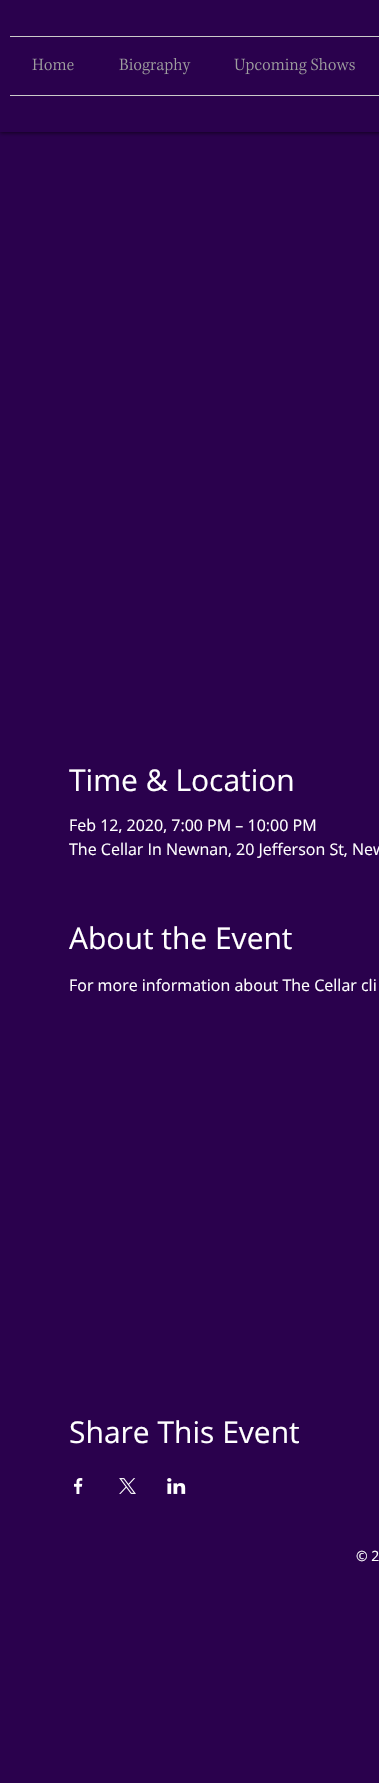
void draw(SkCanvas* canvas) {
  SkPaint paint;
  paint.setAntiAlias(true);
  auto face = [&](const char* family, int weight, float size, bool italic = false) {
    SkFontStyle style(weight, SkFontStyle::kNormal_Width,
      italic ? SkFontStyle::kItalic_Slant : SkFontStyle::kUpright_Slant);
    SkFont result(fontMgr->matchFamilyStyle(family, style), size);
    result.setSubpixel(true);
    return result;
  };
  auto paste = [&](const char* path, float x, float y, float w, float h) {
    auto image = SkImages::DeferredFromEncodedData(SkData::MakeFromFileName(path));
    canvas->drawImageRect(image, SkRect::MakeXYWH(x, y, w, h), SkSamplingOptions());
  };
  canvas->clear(0xff2a014d);
  canvas->save();
  canvas->clipRect(SkRect::MakeXYWH(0, 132, 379, 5));
  paint.setColor(0x99000000);
  paint.setMaskFilter(SkMaskFilter::MakeBlur(kNormal_SkBlurStyle, 2));
  canvas->drawRect(SkRect::MakeXYWH(0, 1, 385, 132), paint);
  paint.setMaskFilter(nullptr);
  canvas->restore();
  paint.setColor(0xffcacaca);
  canvas->drawRect(SkRect::MakeXYWH(10, 36, 369, 1), paint);
  canvas->drawRect(SkRect::MakeXYWH(10, 95, 369, 1), paint);
  paste("img/1.png", 32, 58, 42, 13);
  paste("img/2.png", 119, 58, 72, 17);
  paste("img/3.png", 234, 58, 121, 17);
  paste("img/4.png", 74, 1478, 9, 16);
  paste("img/5.png", 119, 1478, 17, 16);
  paste("img/6.png", 167, 1478, 19, 16);
  auto f0 = face("Open Sans", 400, 30);
  paint.setColor(0xffffffff);
  canvas->drawString("Time & Location", 69, 791, f0, paint);
  auto f1 = face("Open Sans", 400, 16);
  canvas->drawString("Feb 12, 2020, 7:00 PM – 10:00 PM", 69, 831, f1, paint);
  canvas->drawString("The Cellar In Newnan, 20 Jefferson St, New", 69, 855, f1, paint);
  canvas->drawString("About the Event", 69, 949, f0, paint);
  canvas->drawString("For more information about The Cellar cli", 69, 991, f1, paint);
  canvas->drawString("Share This Event", 69, 1443, f0, paint);
  auto f2 = face("Open Sans", 400, 14);
  canvas->drawString("© 2", 356, 1561, f2, paint);
}
